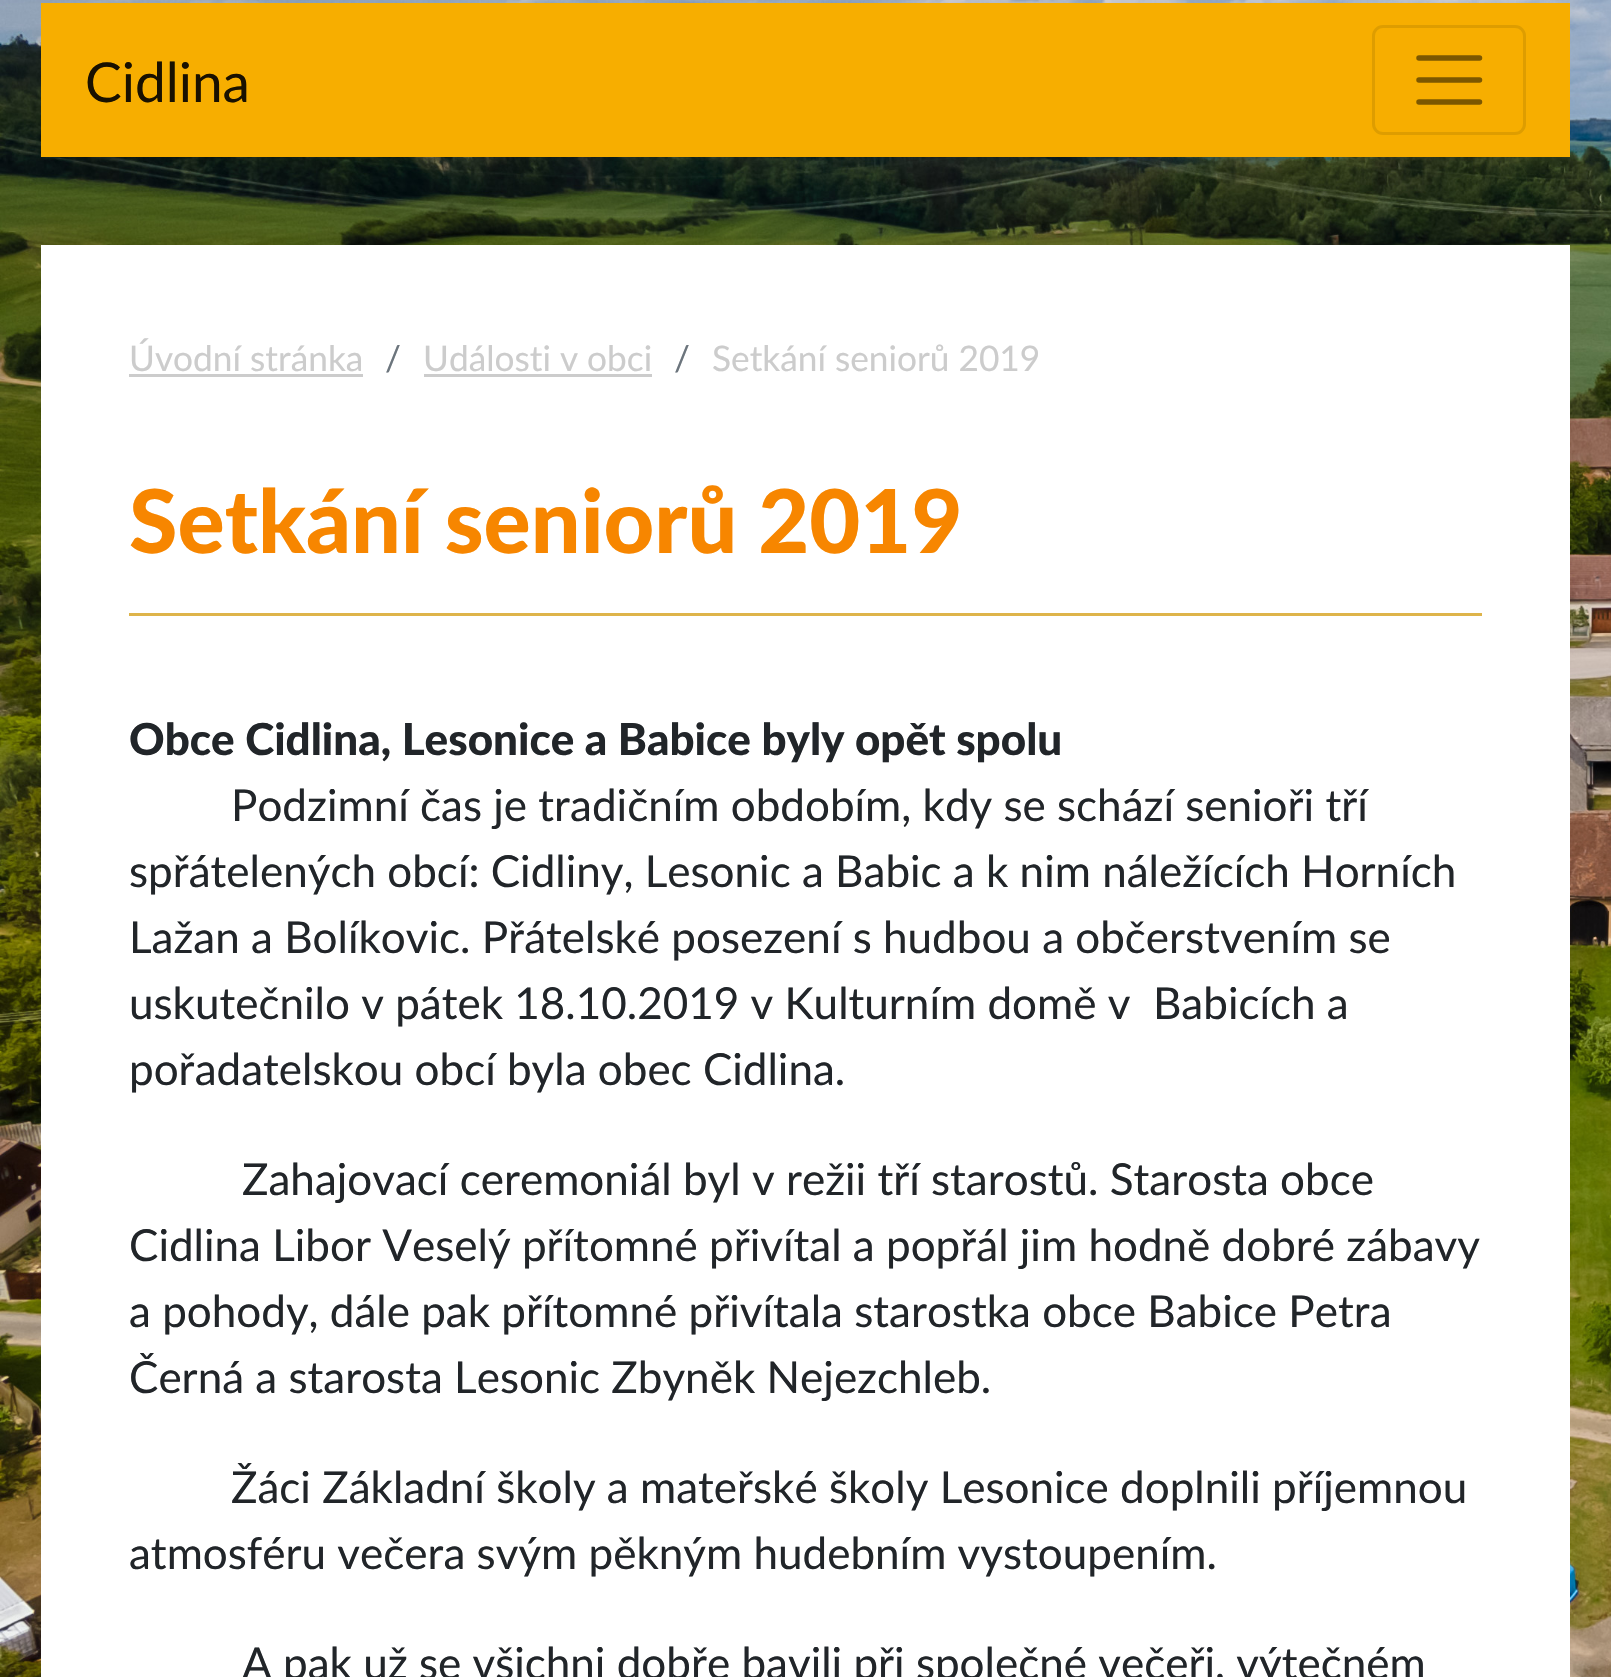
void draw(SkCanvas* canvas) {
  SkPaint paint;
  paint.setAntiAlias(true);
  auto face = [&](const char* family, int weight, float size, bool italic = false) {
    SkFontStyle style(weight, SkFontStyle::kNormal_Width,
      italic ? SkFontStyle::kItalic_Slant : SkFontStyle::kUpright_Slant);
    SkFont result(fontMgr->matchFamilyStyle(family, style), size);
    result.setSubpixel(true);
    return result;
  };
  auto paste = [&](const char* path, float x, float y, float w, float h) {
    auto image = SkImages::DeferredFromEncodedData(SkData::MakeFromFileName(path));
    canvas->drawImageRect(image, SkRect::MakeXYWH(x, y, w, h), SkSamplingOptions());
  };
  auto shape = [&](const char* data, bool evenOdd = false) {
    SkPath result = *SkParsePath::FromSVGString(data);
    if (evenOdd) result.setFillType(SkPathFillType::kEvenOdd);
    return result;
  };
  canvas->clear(0xffffffff);
  paste("img/1.png", 0, 0, 1611, 1677);
  paint.setColor(0xfff7ae00);
  canvas->drawRect(SkRect::MakeXYWH(41, 3, 1529, 154), paint);
  paint.setStroke(true);
  paint.setStrokeWidth(3);
  paint.setColor(0xffde9d00);
  canvas->drawRoundRect(SkRect::MakeXYWH(1373.5f, 26.5f, 151, 107), 9.5f, 9.5f, paint);
  paint.setStrokeWidth(5.5f);
  paint.setStrokeCap(SkPaint::kRound_Cap);
  paint.setColor(0xff7c5700);
  canvas->drawPath(shape("M1419 58H1479.5M1419 80H1479.5M1419 102H1479.5"), paint);
  paint.setStroke(false);
  {
    const struct { float x, y, w, h; SkColor color; } items[] = {
      {41, 245, 1529, 1432, 0xffffffff},
      {129, 374, 234, 3, 0xffcccccc},
      {424, 374, 228, 3, 0xffcccccc},
      {129, 613, 1353, 3, 0xffdeb44a},
    };
    for (auto [x, y, w, h, color] : items) {
      paint.setColor(color);
      canvas->drawRect(SkRect::MakeXYWH(x, y, w, h), paint);
    }
  }
  auto f0 = face("Lato", 400, 55);
  paint.setColor(0xff191100);
  canvas->drawString("Cidlina", 85, 102, f0, paint);
  auto f1 = face("Lato", 400, 35.25f);
  paint.setColor(0xffcccccc);
  canvas->drawString("Úvodní stránka", 129, 371, f1, paint);
  paint.setColor(0xff6c757d);
  canvas->drawString("/", 385, 371, f1, paint);
  paint.setColor(0xffcccccc);
  canvas->drawString("Události v obci", 423, 371, f1, paint);
  paint.setColor(0xff6c757d);
  canvas->drawString("/", 674, 371, f1, paint);
  paint.setColor(0xffcccccc);
  canvas->drawString("Setkání seniorů 2019", 712, 371, f1, paint);
  auto f2 = face("Lato", 900, 88);
  paint.setColor(0xfff78600);
  canvas->drawString("Setkání seniorů 2019", 129, 553, f2, paint);
  auto f3 = face("Lato", 900, 44);
  paint.setColor(0xff212529);
  canvas->drawString("Obce Cidlina, Lesonice a Babice byly opět spolu", 129, 755, f3, paint);
  auto f4 = face("Lato", 400, 44);
  {
    const struct { const char* s; float x, y; } items[] = {
      {"Podzimní čas je tradičním obdobím, kdy se schází senioři tří", 231, 821},
      {"spřátelených obcí: Cidliny, Lesonic a Babic a k nim náležících Horních", 129, 887},
      {"Lažan a Bolíkovic. Přátelské posezení s hudbou a občerstvením se", 129, 953},
      {"uskutečnilo v pátek 18.10.2019 v Kulturním domě v  Babicích a", 129, 1019},
      {"pořadatelskou obcí byla obec Cidlina.", 129, 1085},
      {"Zahajovací ceremoniál byl v režii tří starostů. Starosta obce", 242, 1195},
      {"Cidlina Libor Veselý přítomné přivítal a popřál jim hodně dobré zábavy", 129, 1261},
      {"a pohody, dále pak přítomné přivítala starostka obce Babice Petra", 129, 1327},
      {"Černá a starosta Lesonic Zbyněk Nejezchleb.", 129, 1393},
      {"Žáci Základní školy a mateřské školy Lesonice doplnili příjemnou", 231, 1503},
      {"atmosféru večera svým pěkným hudebním vystoupením.", 129, 1569},
      {"A pak už se všichni dobře bavili při společné večeři, výtečném", 242, 1679},
    };
    for (auto [s, x, y] : items) {
      canvas->drawString(s, x, y, f4, paint);
    }
  }
}
